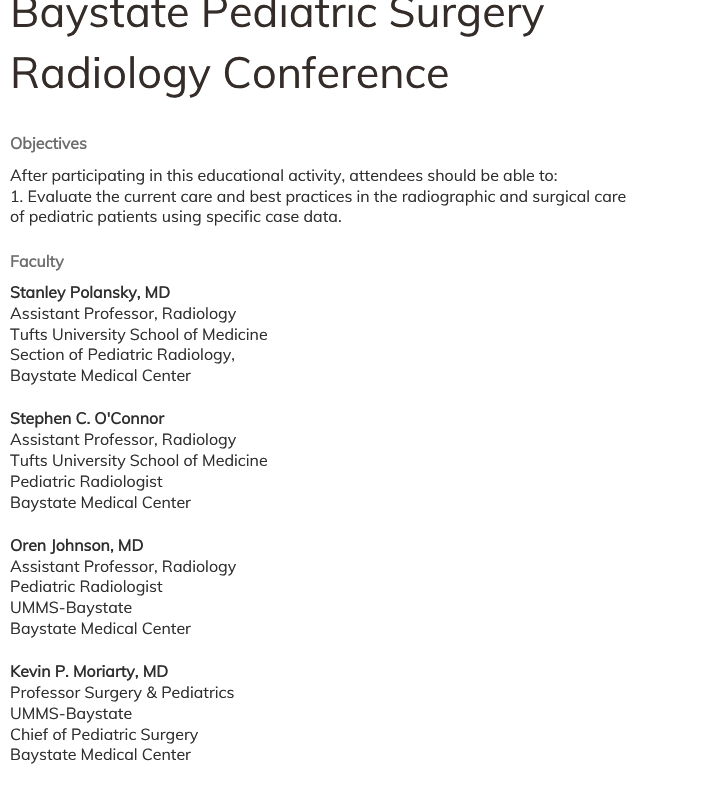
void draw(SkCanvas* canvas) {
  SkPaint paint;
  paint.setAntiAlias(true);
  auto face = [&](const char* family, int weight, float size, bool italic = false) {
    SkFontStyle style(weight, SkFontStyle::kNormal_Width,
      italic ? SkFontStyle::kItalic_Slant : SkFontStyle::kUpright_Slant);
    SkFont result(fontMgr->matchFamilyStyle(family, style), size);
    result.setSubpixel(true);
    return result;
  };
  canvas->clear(0xffffffff);
  auto f0 = face("Muli", 400, 43.25f);
  paint.setColor(0xff342c29);
  canvas->drawString("Baystate Pediatric Surgery", 10, 27, f0, paint);
  canvas->drawString("Radiology Conference", 10, 88, f0, paint);
  auto f1 = face("Muli", 700, 16);
  paint.setColor(0xff6d6d6d);
  canvas->drawString("Objectives", 10, 149, f1, paint);
  auto f2 = face("Muli", 400, 16);
  paint.setColor(0xff2f2f2f);
  {
    const struct { const char* s; float x, y; } items[] = {
      {"After participating in this educational activity, attendees should be able to:", 10, 181},
      {"1. Evaluate the current care and best practices in the radiographic and surgical care", 10, 202},
      {"of pediatric patients using specific case data.", 10, 222},
    };
    for (auto [s, x, y] : items) {
      canvas->drawString(s, x, y, f2, paint);
    }
  }
  paint.setColor(0xff6d6d6d);
  canvas->drawString("Faculty", 10, 267, f1, paint);
  paint.setColor(0xff2f2f2f);
  canvas->drawString("Stanley Polansky, MD", 10, 298, f1, paint);
  {
    const struct { const char* s; float x, y; } items[] = {
      {"Assistant Professor, Radiology", 10, 319},
      {"Tufts University School of Medicine", 10, 340},
      {"Section of Pediatric Radiology,", 10, 360},
      {"Baystate Medical Center", 10, 381},
    };
    for (auto [s, x, y] : items) {
      canvas->drawString(s, x, y, f2, paint);
    }
  }
  canvas->drawString("Stephen C. O'Connor", 10, 424, f1, paint);
  {
    const struct { const char* s; float x, y; } items[] = {
      {"Assistant Professor, Radiology", 10, 445},
      {"Tufts University School of Medicine", 10, 466},
      {"Pediatric Radiologist", 10, 487},
      {"Baystate Medical Center", 10, 508},
    };
    for (auto [s, x, y] : items) {
      canvas->drawString(s, x, y, f2, paint);
    }
  }
  canvas->drawString("Oren Johnson, MD", 10, 551, f1, paint);
  {
    const struct { const char* s; float x, y; } items[] = {
      {"Assistant Professor, Radiology", 10, 572},
      {"Pediatric Radiologist", 10, 592},
      {"UMMS-Baystate", 10, 613},
      {"Baystate Medical Center", 10, 634},
    };
    for (auto [s, x, y] : items) {
      canvas->drawString(s, x, y, f2, paint);
    }
  }
  canvas->drawString("Kevin P. Moriarty, MD", 10, 677, f1, paint);
  {
    const struct { const char* s; float x, y; } items[] = {
      {"Professor Surgery & Pediatrics", 10, 698},
      {"UMMS-Baystate", 10, 719},
      {"Chief of Pediatric Surgery", 10, 740},
      {"Baystate Medical Center", 10, 760},
    };
    for (auto [s, x, y] : items) {
      canvas->drawString(s, x, y, f2, paint);
    }
  }
}
